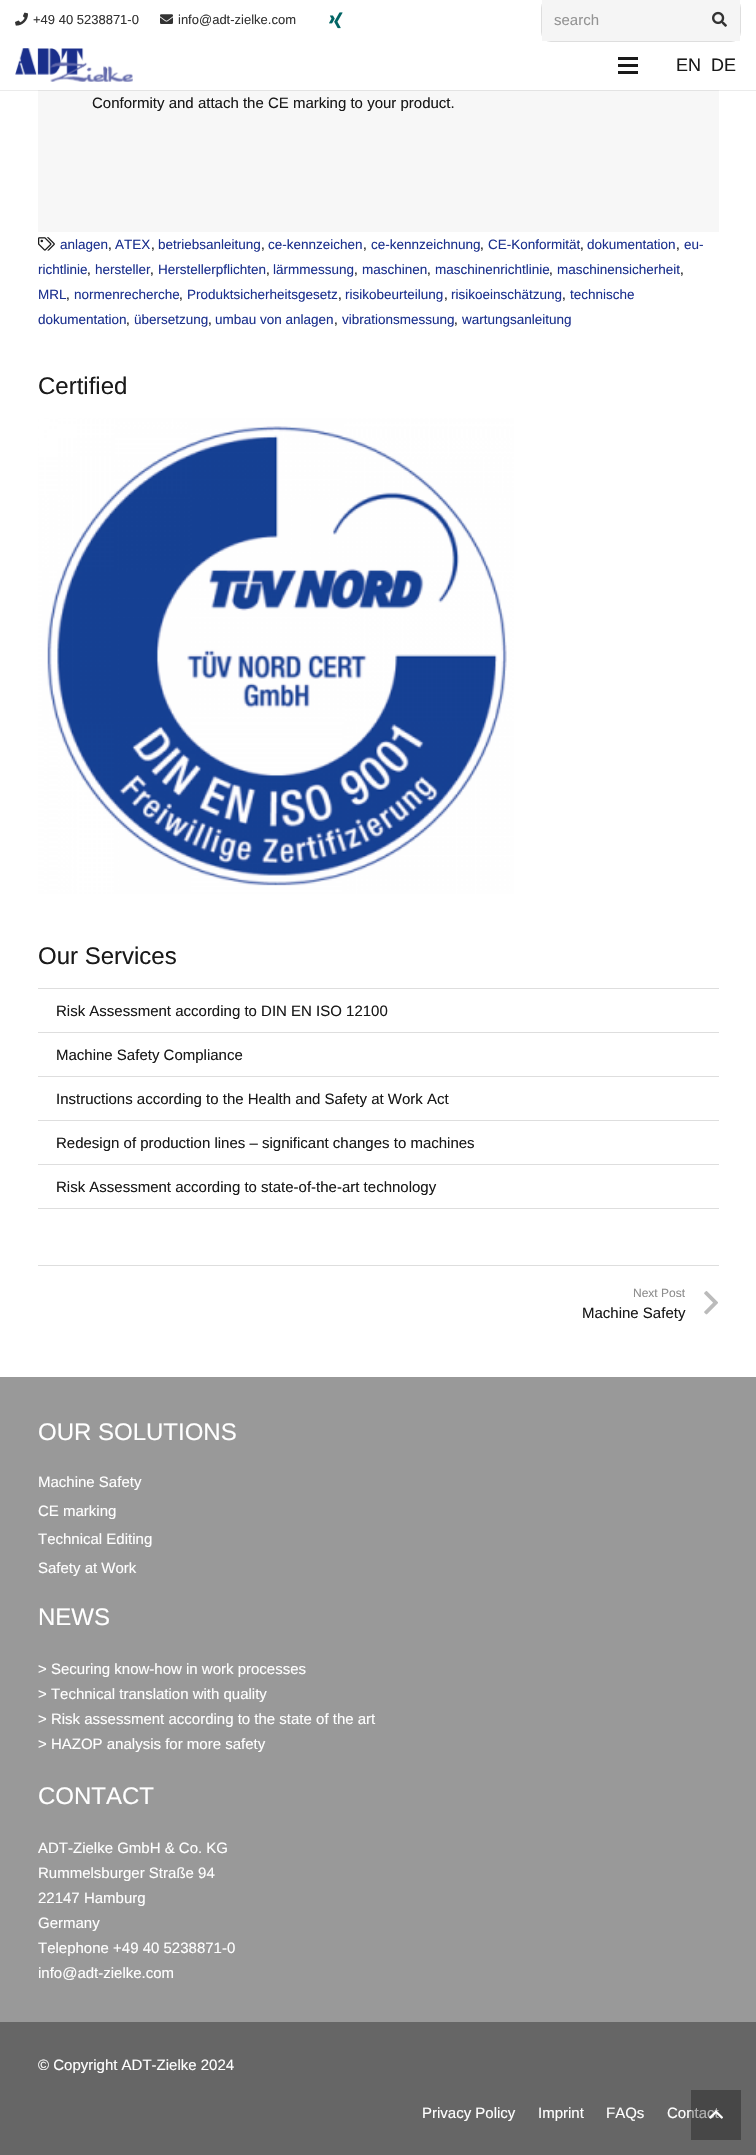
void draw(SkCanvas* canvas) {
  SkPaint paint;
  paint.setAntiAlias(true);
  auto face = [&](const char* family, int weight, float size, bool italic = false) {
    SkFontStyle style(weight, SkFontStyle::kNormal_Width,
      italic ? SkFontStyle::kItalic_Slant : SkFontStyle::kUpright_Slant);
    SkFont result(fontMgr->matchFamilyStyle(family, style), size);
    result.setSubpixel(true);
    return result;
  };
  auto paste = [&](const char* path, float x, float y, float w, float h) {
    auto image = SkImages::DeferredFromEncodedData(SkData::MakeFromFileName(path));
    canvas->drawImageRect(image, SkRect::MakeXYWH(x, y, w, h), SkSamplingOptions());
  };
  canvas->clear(0xffffffff);
  paint.setColor(0xffebebeb);
  canvas->drawRect(SkRect::MakeXYWH(0, 90, 756, 1), paint);
  paste("img/1.png", 15, 12, 13, 14);
  paste("img/2.png", 160, 14, 13, 10);
  paste("img/3.png", 329, 12, 14, 17);
  paint.setStroke(true);
  paint.setStrokeWidth(1);
  paint.setColor(0xffdedede);
  canvas->drawRoundRect(SkRect::MakeXYWH(541.5f, -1.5f, 199, 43), 9.5f, 9.5f, paint);
  paint.setStroke(false);
  paint.setColor(0xfff5f5f5);
  canvas->drawRect(SkRect::MakeXYWH(542, 0, 198, 41), paint);
  paste("img/4.png", 712, 11, 15, 16);
  paste("img/5.png", 15, 48, 118, 34);
  {
    const struct { float x, y, w, h; SkColor color; } items[] = {
      {618, 64, 20, 3, 0xff1a1a1a},
      {618, 57, 20, 3, 0xff1a1a1a},
      {618, 71, 20, 3, 0xff1a1a1a},
      {38, 91, 681, 141, 0xfff7f7f7},
      {38, 90, 681, 1, 0xffe3e3e3},
    };
    for (auto [x, y, w, h, color] : items) {
      paint.setColor(color);
      canvas->drawRect(SkRect::MakeXYWH(x, y, w, h), paint);
    }
  }
  paste("img/6.png", 38, 237, 17, 14);
  paste("img/7.png", 38, 418, 476, 476);
  {
    const struct { float x, y, w, h; SkColor color; } items[] = {
      {38, 1208, 681, 1, 0xffdedede},
      {38, 988, 681, 1, 0xffdedede},
      {38, 1032, 681, 1, 0xffdedede},
      {38, 1076, 681, 1, 0xffdedede},
      {38, 1120, 681, 1, 0xffdedede},
      {38, 1164, 681, 1, 0xffdedede},
      {38, 1265, 681, 1, 0xffdedede},
    };
    for (auto [x, y, w, h, color] : items) {
      paint.setColor(color);
      canvas->drawRect(SkRect::MakeXYWH(x, y, w, h), paint);
    }
  }
  paste("img/8.png", 704, 1291, 14, 24);
  paint.setColor(0xff999999);
  canvas->drawRect(SkRect::MakeXYWH(0, 1377, 756, 645), paint);
  paint.setColor(0xff666666);
  canvas->drawRect(SkRect::MakeXYWH(0, 2022, 756, 133), paint);
  auto f0 = face("Liberation Sans", 400, 13);
  paint.setColor(0xff333333);
  canvas->drawString("+49 40 5238871-0", 33, 24, f0, paint);
  canvas->drawString("info@adt-zielke.com", 178, 24, f0, paint);
  auto f1 = face("Liberation Sans", 400, 15);
  paint.setColor(0xff949494);
  canvas->drawString("search", 554, 25, f1, paint);
  auto f2 = face("Liberation Sans", 400, 18);
  paint.setColor(0xff1a1a1a);
  canvas->drawString("EN", 676, 71, f2, paint);
  canvas->drawString("DE", 711, 71, f2, paint);
  canvas->drawString("Conformity and attach the CE marking to your product.", 92, 108, f1, paint);
  auto f3 = face("Liberation Sans", 400, 13.5f);
  paint.setColor(0xff1d328f);
  canvas->drawString("anlagen", 60, 249, f3, paint);
  paint.setColor(0xff1a1a1a);
  canvas->drawString(",", 108, 249, f3, paint);
  paint.setColor(0xff1d328f);
  canvas->drawString("ATEX", 115, 249, f3, paint);
  paint.setColor(0xff1a1a1a);
  canvas->drawString(",", 151, 249, f3, paint);
  paint.setColor(0xff1d328f);
  canvas->drawString("betriebsanleitung", 158, 249, f3, paint);
  paint.setColor(0xff1a1a1a);
  canvas->drawString(",", 261, 249, f3, paint);
  paint.setColor(0xff1d328f);
  canvas->drawString("ce-kennzeichen", 268, 249, f3, paint);
  paint.setColor(0xff1a1a1a);
  canvas->drawString(",", 363, 249, f3, paint);
  paint.setColor(0xff1d328f);
  canvas->drawString("ce-kennzeichnung", 371, 249, f3, paint);
  paint.setColor(0xff1a1a1a);
  canvas->drawString(",", 480, 249, f3, paint);
  paint.setColor(0xff1d328f);
  canvas->drawString("CE-Konformität", 488, 249, f3, paint);
  paint.setColor(0xff1a1a1a);
  canvas->drawString(",", 580, 249, f3, paint);
  paint.setColor(0xff1d328f);
  canvas->drawString("dokumentation", 587, 249, f3, paint);
  paint.setColor(0xff1a1a1a);
  canvas->drawString(",", 676, 249, f3, paint);
  paint.setColor(0xff1d328f);
  canvas->drawString("eu-", 684, 249, f3, paint);
  canvas->drawString("richtlinie", 38, 274, f3, paint);
  paint.setColor(0xff1a1a1a);
  canvas->drawString(",", 87, 274, f3, paint);
  paint.setColor(0xff1d328f);
  canvas->drawString("hersteller", 95, 274, f3, paint);
  paint.setColor(0xff1a1a1a);
  canvas->drawString(",", 150, 274, f3, paint);
  paint.setColor(0xff1d328f);
  canvas->drawString("Herstellerpflichten", 158, 274, f3, paint);
  paint.setColor(0xff1a1a1a);
  canvas->drawString(",", 266, 274, f3, paint);
  paint.setColor(0xff1d328f);
  canvas->drawString("lärmmessung", 273, 274, f3, paint);
  paint.setColor(0xff1a1a1a);
  canvas->drawString(",", 354, 274, f3, paint);
  paint.setColor(0xff1d328f);
  canvas->drawString("maschinen", 362, 274, f3, paint);
  paint.setColor(0xff1a1a1a);
  canvas->drawString(",", 427, 274, f3, paint);
  paint.setColor(0xff1d328f);
  canvas->drawString("maschinenrichtlinie", 435, 274, f3, paint);
  paint.setColor(0xff1a1a1a);
  canvas->drawString(",", 549, 274, f3, paint);
  paint.setColor(0xff1d328f);
  canvas->drawString("maschinensicherheit", 557, 274, f3, paint);
  paint.setColor(0xff1a1a1a);
  canvas->drawString(",", 680, 274, f3, paint);
  paint.setColor(0xff1d328f);
  canvas->drawString("MRL", 38, 299, f3, paint);
  paint.setColor(0xff1a1a1a);
  canvas->drawString(",", 66, 299, f3, paint);
  paint.setColor(0xff1d328f);
  canvas->drawString("normenrecherche", 74, 299, f3, paint);
  paint.setColor(0xff1a1a1a);
  canvas->drawString(",", 179, 299, f3, paint);
  paint.setColor(0xff1d328f);
  canvas->drawString("Produktsicherheitsgesetz", 187, 299, f3, paint);
  paint.setColor(0xff1a1a1a);
  canvas->drawString(",", 338, 299, f3, paint);
  paint.setColor(0xff1d328f);
  canvas->drawString("risikobeurteilung", 345, 299, f3, paint);
  paint.setColor(0xff1a1a1a);
  canvas->drawString(",", 444, 299, f3, paint);
  paint.setColor(0xff1d328f);
  canvas->drawString("risikoeinschätzung", 451, 299, f3, paint);
  paint.setColor(0xff1a1a1a);
  canvas->drawString(",", 562, 299, f3, paint);
  paint.setColor(0xff1d328f);
  canvas->drawString("technische", 570, 299, f3, paint);
  canvas->drawString("dokumentation", 38, 324, f3, paint);
  paint.setColor(0xff1a1a1a);
  canvas->drawString(",", 126, 324, f3, paint);
  paint.setColor(0xff1d328f);
  canvas->drawString("übersetzung", 134, 324, f3, paint);
  paint.setColor(0xff1a1a1a);
  canvas->drawString(",", 208, 324, f3, paint);
  paint.setColor(0xff1d328f);
  canvas->drawString("umbau von anlagen", 215, 324, f3, paint);
  paint.setColor(0xff1a1a1a);
  canvas->drawString(",", 334, 324, f3, paint);
  paint.setColor(0xff1d328f);
  canvas->drawString("vibrationsmessung", 342, 324, f3, paint);
  paint.setColor(0xff1a1a1a);
  canvas->drawString(",", 454, 324, f3, paint);
  paint.setColor(0xff1d328f);
  canvas->drawString("wartungsanleitung", 462, 324, f3, paint);
  auto f4 = face("Liberation Sans", 400, 24);
  paint.setColor(0xff1a1a1a);
  canvas->drawString("Certified", 38, 394, f4, paint);
  canvas->drawString("Our Services", 38, 964, f4, paint);
  {
    const struct { const char* s; float x, y; } items[] = {
      {"Risk Assessment according to DIN EN ISO 12100", 56, 1016},
      {"Machine Safety Compliance", 56, 1060},
      {"Instructions according to the Health and Safety at Work Act", 56, 1104},
      {"Redesign of production lines – significant changes to machines", 56, 1148},
      {"Risk Assessment according to state-of-the-art technology", 56, 1192},
    };
    for (auto [s, x, y] : items) {
      canvas->drawString(s, x, y, f1, paint);
    }
  }
  auto f5 = face("Liberation Sans", 400, 12);
  paint.setColor(0xff8d8d8d);
  canvas->drawString("Next Post", 633, 1297, f5, paint);
  paint.setColor(0xff1a1a1a);
  canvas->drawString("Machine Safety", 582, 1318, f1, paint);
  paint.setColor(0xffffffff);
  canvas->drawString("OUR SOLUTIONS", 38, 1440, f4, paint);
  {
    const struct { const char* s; float x, y; } items[] = {
      {"Machine Safety", 38, 1487},
      {"CE marking", 38, 1516},
      {"Technical Editing", 38, 1544},
      {"Safety at Work", 38, 1573},
    };
    for (auto [s, x, y] : items) {
      canvas->drawString(s, x, y, f1, paint);
    }
  }
  canvas->drawString("NEWS", 38, 1625, f4, paint);
  {
    const struct { const char* s; float x, y; } items[] = {
      {"> Securing know-how in work processes", 38, 1674},
      {"> Technical translation with quality", 38, 1699},
      {"> Risk assessment according to the state of the art", 38, 1724},
      {"> HAZOP analysis for more safety", 38, 1749},
    };
    for (auto [s, x, y] : items) {
      canvas->drawString(s, x, y, f1, paint);
    }
  }
  canvas->drawString("CONTACT", 38, 1804, f4, paint);
  {
    const struct { const char* s; float x, y; } items[] = {
      {"ADT-Zielke GmbH & Co. KG", 38, 1853},
      {"Rummelsburger Straße 94", 38, 1878},
      {"22147 Hamburg", 38, 1903},
      {"Germany", 38, 1928},
      {"Telephone +49 40 5238871-0", 38, 1953},
      {"info@adt-zielke.com", 38, 1978},
      {"© Copyright ADT-Zielke 2024", 38, 2070},
      {"Privacy Policy", 422, 2118},
      {"Imprint", 538, 2118},
      {"FAQs", 606, 2118},
      {"Contact", 667, 2118},
    };
    for (auto [s, x, y] : items) {
      canvas->drawString(s, x, y, f1, paint);
    }
  }
  paint.setColor(0x4d000000);
  canvas->drawRect(SkRect::MakeXYWH(691, 2090, 50, 50), paint);
  paste("img/9.png", 709, 2110, 14, 9);
}
